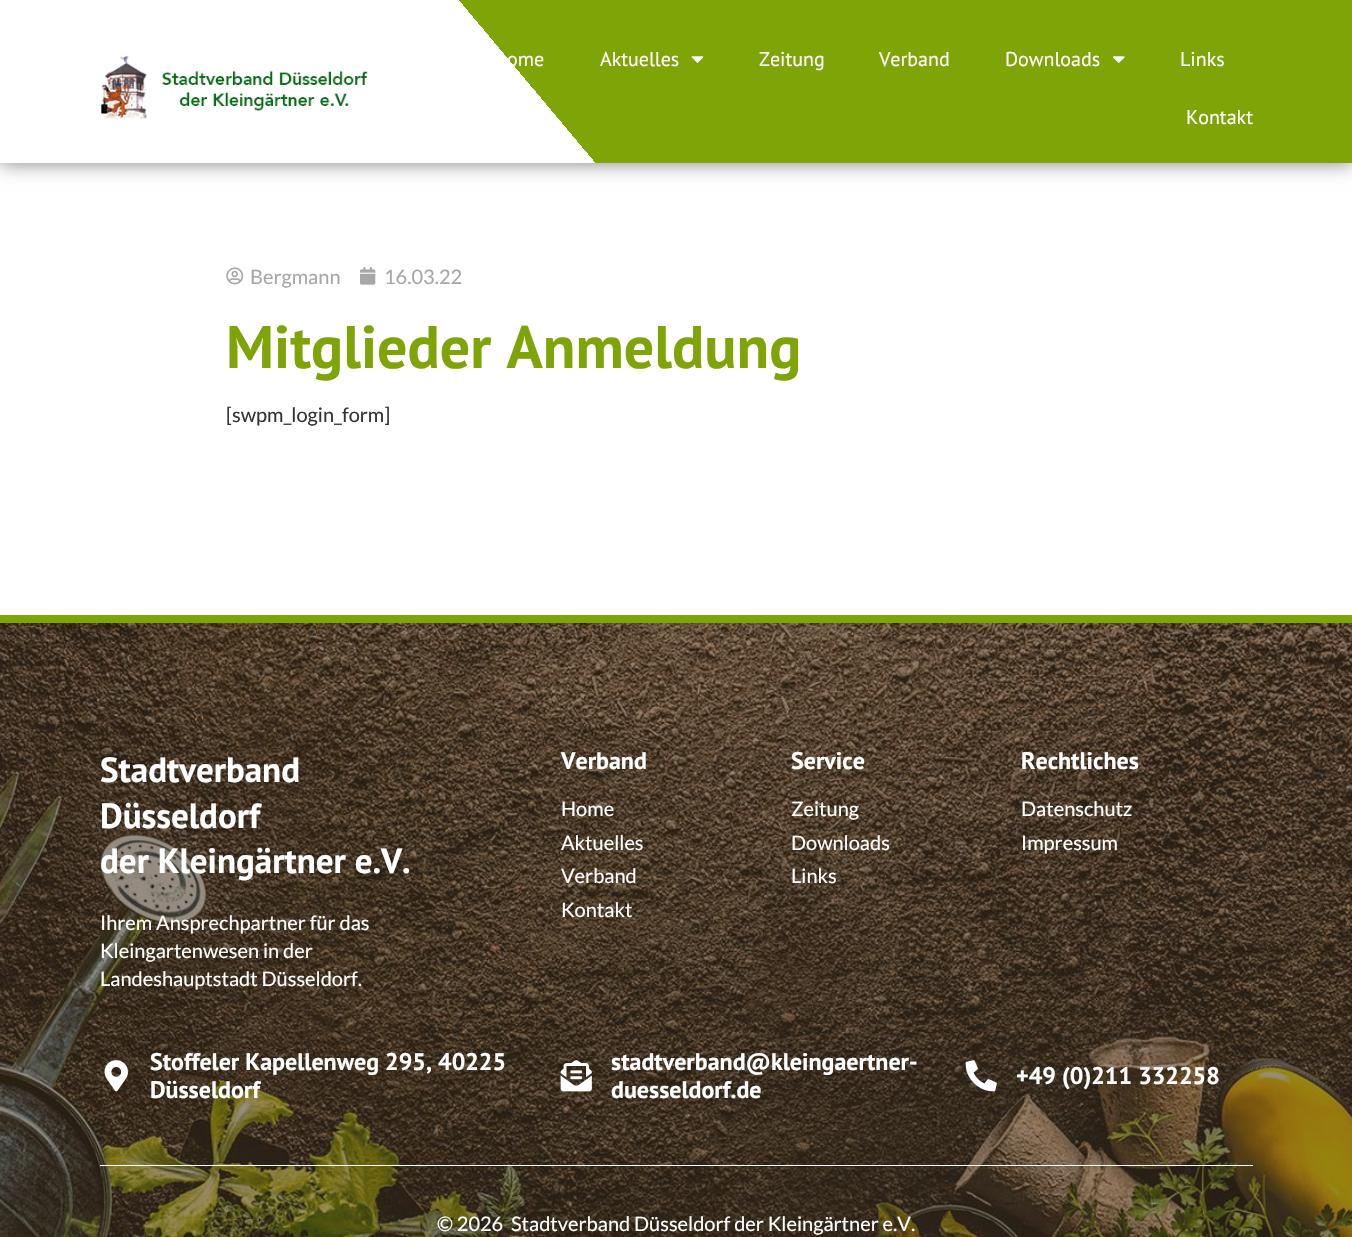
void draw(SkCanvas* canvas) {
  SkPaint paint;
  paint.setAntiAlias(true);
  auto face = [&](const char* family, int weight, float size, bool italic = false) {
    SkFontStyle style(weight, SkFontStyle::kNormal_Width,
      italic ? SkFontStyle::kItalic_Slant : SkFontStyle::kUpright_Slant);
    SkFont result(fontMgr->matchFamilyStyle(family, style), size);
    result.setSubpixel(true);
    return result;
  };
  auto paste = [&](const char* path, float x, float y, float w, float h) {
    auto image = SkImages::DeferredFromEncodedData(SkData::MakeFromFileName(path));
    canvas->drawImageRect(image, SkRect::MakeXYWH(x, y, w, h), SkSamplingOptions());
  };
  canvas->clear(0xffffffff);
  paint.setColor(0x80000000);
  paint.setMaskFilter(SkMaskFilter::MakeBlur(kNormal_SkBlurStyle, 9.5f));
  canvas->drawRect(SkRect::MakeXYWH(0, 0, 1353, 163), paint);
  paint.setMaskFilter(nullptr);
  {
    const SkColor colors[] = {0xffffffff, 0xff7fa408};
    const float stops[] = {0.4f, 0.4f};
    const SkPoint ends[] = {{239, 448}, {1113, -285}};
    paint.setShader(SkGradientShader::MakeLinear(ends, colors, stops, 2, SkTileMode::kClamp));
    paint.setAlpha(255);
  }
  canvas->drawRect(SkRect::MakeXYWH(0, 0, 1352, 163), paint);
  paste("img/1.png", 101, 55, 267, 64);
  paste("img/2.png", 691, 56, 13, 7);
  paste("img/3.png", 1113, 56, 12, 7);
  paste("img/4.png", 226, 267, 18, 18);
  paste("img/5.png", 360, 267, 16, 18);
  paste("img/6.png", 0, 623, 1352, 614);
  paint.setShader(nullptr);
  paint.setColor(0xff7fa408);
  canvas->drawRect(SkRect::MakeXYWH(0, 615, 1352, 8), paint);
  paste("img/7.png", 104, 1060, 24, 32);
  paste("img/8.png", 560, 1060, 32, 32);
  paste("img/9.png", 965, 1060, 32, 32);
  paint.setColor(0xffffffff);
  canvas->drawRect(SkRect::MakeXYWH(100, 1165, 1153, 1), paint);
  auto f0 = face("PT Sans", 400, 20);
  {
    const struct { const char* s; float x, y; } items[] = {
      {"ome", 507, 66},
      {"Aktuelles", 600, 66},
      {"Zeitung", 759, 66},
      {"Verband", 879, 66},
      {"Downloads", 1005, 66},
      {"Links", 1180, 66},
      {"Kontakt", 1186, 124},
    };
    for (auto [s, x, y] : items) {
      canvas->drawString(s, x, y, f0, paint);
    }
  }
  auto f1 = face("Lato", 400, 20);
  paint.setColor(0xffa7a7a7);
  canvas->drawString("Bergmann", 250, 284, f1, paint);
  canvas->drawString("16.03.22", 384, 284, f1, paint);
  auto f2 = face("PT Sans", 700, 60);
  paint.setColor(0xff7fa408);
  canvas->drawString("Mitglieder Anmeldung", 226, 368, f2, paint);
  paint.setColor(0xff333333);
  canvas->drawString("[swpm_login_form]", 226, 422, f1, paint);
  auto f3 = face("PT Sans", 700, 35);
  paint.setColor(0xffffffff);
  {
    const struct { const char* s; float x, y; } items[] = {
      {"Stadtverband", 100, 782},
      {"Düsseldorf", 100, 828},
      {"der Kleingärtner e.V.", 100, 873},
    };
    for (auto [s, x, y] : items) {
      canvas->drawString(s, x, y, f3, paint);
    }
  }
  {
    const struct { const char* s; float x, y; } items[] = {
      {"Ihrem Ansprechpartner für das", 100, 930},
      {"Kleingartenwesen in der", 100, 958},
      {"Landeshauptstadt Düsseldorf.", 100, 986},
    };
    for (auto [s, x, y] : items) {
      canvas->drawString(s, x, y, f1, paint);
    }
  }
  auto f4 = face("PT Sans", 700, 24);
  canvas->drawString("Verband", 561, 769, f4, paint);
  {
    const struct { const char* s; float x, y; } items[] = {
      {"Home", 561, 816},
      {"Aktuelles", 561, 850},
      {"Verband", 561, 883},
      {"Kontakt", 561, 917},
    };
    for (auto [s, x, y] : items) {
      canvas->drawString(s, x, y, f1, paint);
    }
  }
  canvas->drawString("Service", 791, 769, f4, paint);
  {
    const struct { const char* s; float x, y; } items[] = {
      {"Zeitung", 791, 816},
      {"Downloads", 791, 850},
      {"Links", 791, 883},
    };
    for (auto [s, x, y] : items) {
      canvas->drawString(s, x, y, f1, paint);
    }
  }
  canvas->drawString("Rechtliches", 1021, 769, f4, paint);
  canvas->drawString("Datenschutz", 1021, 816, f1, paint);
  canvas->drawString("Impressum", 1021, 850, f1, paint);
  {
    const struct { const char* s; float x, y; } items[] = {
      {"Stoffeler Kapellenweg 295, 40225", 150, 1070},
      {"Düsseldorf", 150, 1098},
      {"stadtverband@kleingaertner-", 611, 1070},
      {"duesseldorf.de", 611, 1098},
      {"+49 (0)211 332258", 1016, 1084},
    };
    for (auto [s, x, y] : items) {
      canvas->drawString(s, x, y, f4, paint);
    }
  }
  canvas->drawString("© 2026  Stadtverband Düsseldorf der Kleingärtner e.V.", 437, 1231, f1, paint);
}
